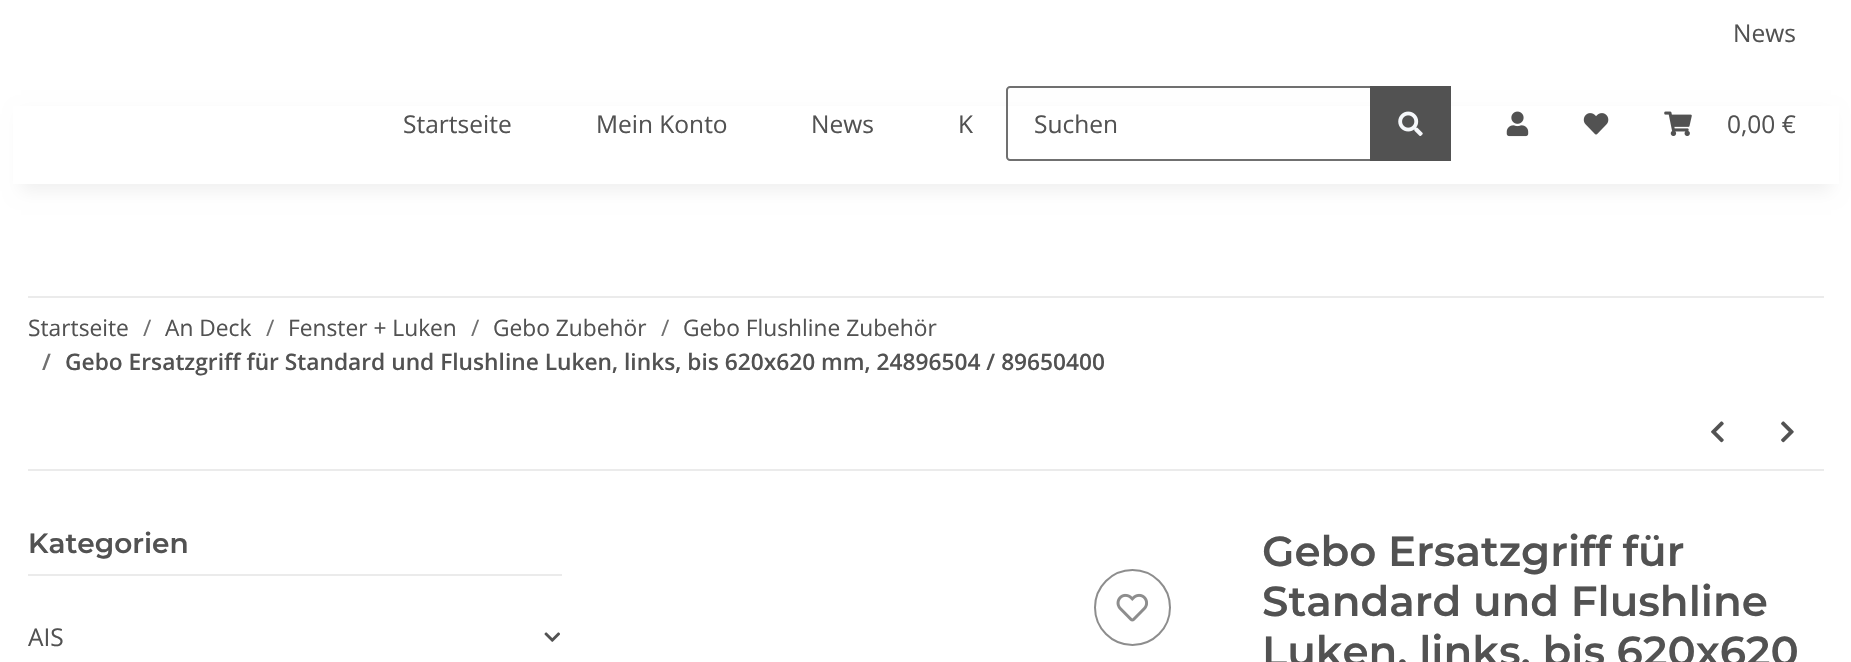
void draw(SkCanvas* canvas) {
  SkPaint paint;
  paint.setAntiAlias(true);
  auto face = [&](const char* family, int weight, float size, bool italic = false) {
    SkFontStyle style(weight, SkFontStyle::kNormal_Width,
      italic ? SkFontStyle::kItalic_Slant : SkFontStyle::kUpright_Slant);
    SkFont result(fontMgr->matchFamilyStyle(family, style), size);
    result.setSubpixel(true);
    return result;
  };
  auto paste = [&](const char* path, float x, float y, float w, float h) {
    auto image = SkImages::DeferredFromEncodedData(SkData::MakeFromFileName(path));
    canvas->drawImageRect(image, SkRect::MakeXYWH(x, y, w, h), SkSamplingOptions());
  };
  auto shape = [&](const char* data, bool evenOdd = false) {
    SkPath result = *SkParsePath::FromSVGString(data);
    if (evenOdd) result.setFillType(SkPathFillType::kEvenOdd);
    return result;
  };
  canvas->clear(0xffffffff);
  paint.setColor(0x0f000000);
  paint.setMaskFilter(SkMaskFilter::MakeBlur(kNormal_SkBlurStyle, 8));
  canvas->drawRect(SkRect::MakeXYWH(21, 114, 1810, 77), paint);
  paint.setMaskFilter(nullptr);
  paint.setColor(0xffffffff);
  canvas->drawRect(SkRect::MakeXYWH(13, 106, 1826, 78), paint);
  paint.setStroke(true);
  paint.setStrokeWidth(2);
  paint.setColor(0xff707070);
  canvas->drawPath(shape("M1010 87H1371V160H1010C1008.5 160 1007 158.5 1007 157V90C1007 88.5 1008.5 87 1010 87Z"), paint);
  paint.setStroke(false);
  paint.setColor(0xff525252);
  canvas->drawRect(SkRect::MakeXYWH(1370, 86, 81, 75), paint);
  paste("img/1.png", 1398, 111, 25, 25);
  paste("img/2.png", 1506, 111, 23, 26);
  paste("img/3.png", 1583, 113, 26, 22);
  paste("img/4.png", 1664, 111, 28, 25);
  paint.setColor(0xffebebeb);
  canvas->drawRect(SkRect::MakeXYWH(28, 296, 1796, 2), paint);
  canvas->drawRect(SkRect::MakeXYWH(28, 469, 1796, 2), paint);
  paste("img/5.png", 1711, 421, 13, 22);
  paste("img/6.png", 1781, 421, 13, 22);
  canvas->drawRect(SkRect::MakeXYWH(28, 574, 534, 2), paint);
  paste("img/7.png", 544, 632, 16, 10);
  paint.setStroke(true);
  paint.setColor(0xff8d8d8d);
  canvas->drawCircle(1132.5f, 607.5f, 37.5f, paint);
  paste("img/8.png", 1116, 593, 32, 29);
  auto f0 = face("Open Sans", 400, 24.5f);
  paint.setStroke(false);
  paint.setColor(0xff525252);
  {
    const struct { const char* s; float x, y; } items[] = {
      {"News", 1733, 42},
      {"Startseite", 403, 133},
      {"Mein Konto", 596, 133},
      {"News", 811, 133},
      {"K", 958, 133},
      {"Suchen", 1034, 133},
      {"0,00 €", 1727, 133},
    };
    for (auto [s, x, y] : items) {
      canvas->drawString(s, x, y, f0, paint);
    }
  }
  auto f1 = face("Open Sans", 400, 22.75f);
  canvas->drawString("Startseite", 28, 336, f1, paint);
  paint.setColor(0xff707070);
  canvas->drawString("/", 143, 336, f1, paint);
  paint.setColor(0xff525252);
  canvas->drawString("An Deck", 165, 336, f1, paint);
  paint.setColor(0xff707070);
  canvas->drawString("/", 266, 336, f1, paint);
  paint.setColor(0xff525252);
  canvas->drawString("Fenster + Luken", 288, 336, f1, paint);
  paint.setColor(0xff707070);
  canvas->drawString("/", 471, 336, f1, paint);
  paint.setColor(0xff525252);
  canvas->drawString("Gebo Zubehör", 493, 336, f1, paint);
  paint.setColor(0xff707070);
  canvas->drawString("/", 661, 336, f1, paint);
  paint.setColor(0xff525252);
  canvas->drawString("Gebo Flushline Zubehör", 683, 336, f1, paint);
  auto f2 = face("Open Sans", 600, 22.75f);
  paint.setColor(0xff707070);
  canvas->drawString("/", 42, 370, f2, paint);
  paint.setColor(0xff525252);
  canvas->drawString("Gebo Ersatzgriff für Standard und Flushline Luken, links, bis 620x620 mm, 24896504 / 89650400", 65, 370, f2, paint);
  auto f3 = face("Montserrat", 600, 28);
  canvas->drawString("Kategorien", 28, 553, f3, paint);
  canvas->drawString("AIS", 28, 646, f0, paint);
  auto f4 = face("Montserrat", 600, 42);
  {
    const struct { const char* s; float x, y; } items[] = {
      {"Gebo Ersatzgriff für", 1262, 566},
      {"Standard und Flushline", 1262, 616},
      {"Luken, links, bis 620x620", 1262, 666},
    };
    for (auto [s, x, y] : items) {
      canvas->drawString(s, x, y, f4, paint);
    }
  }
}
